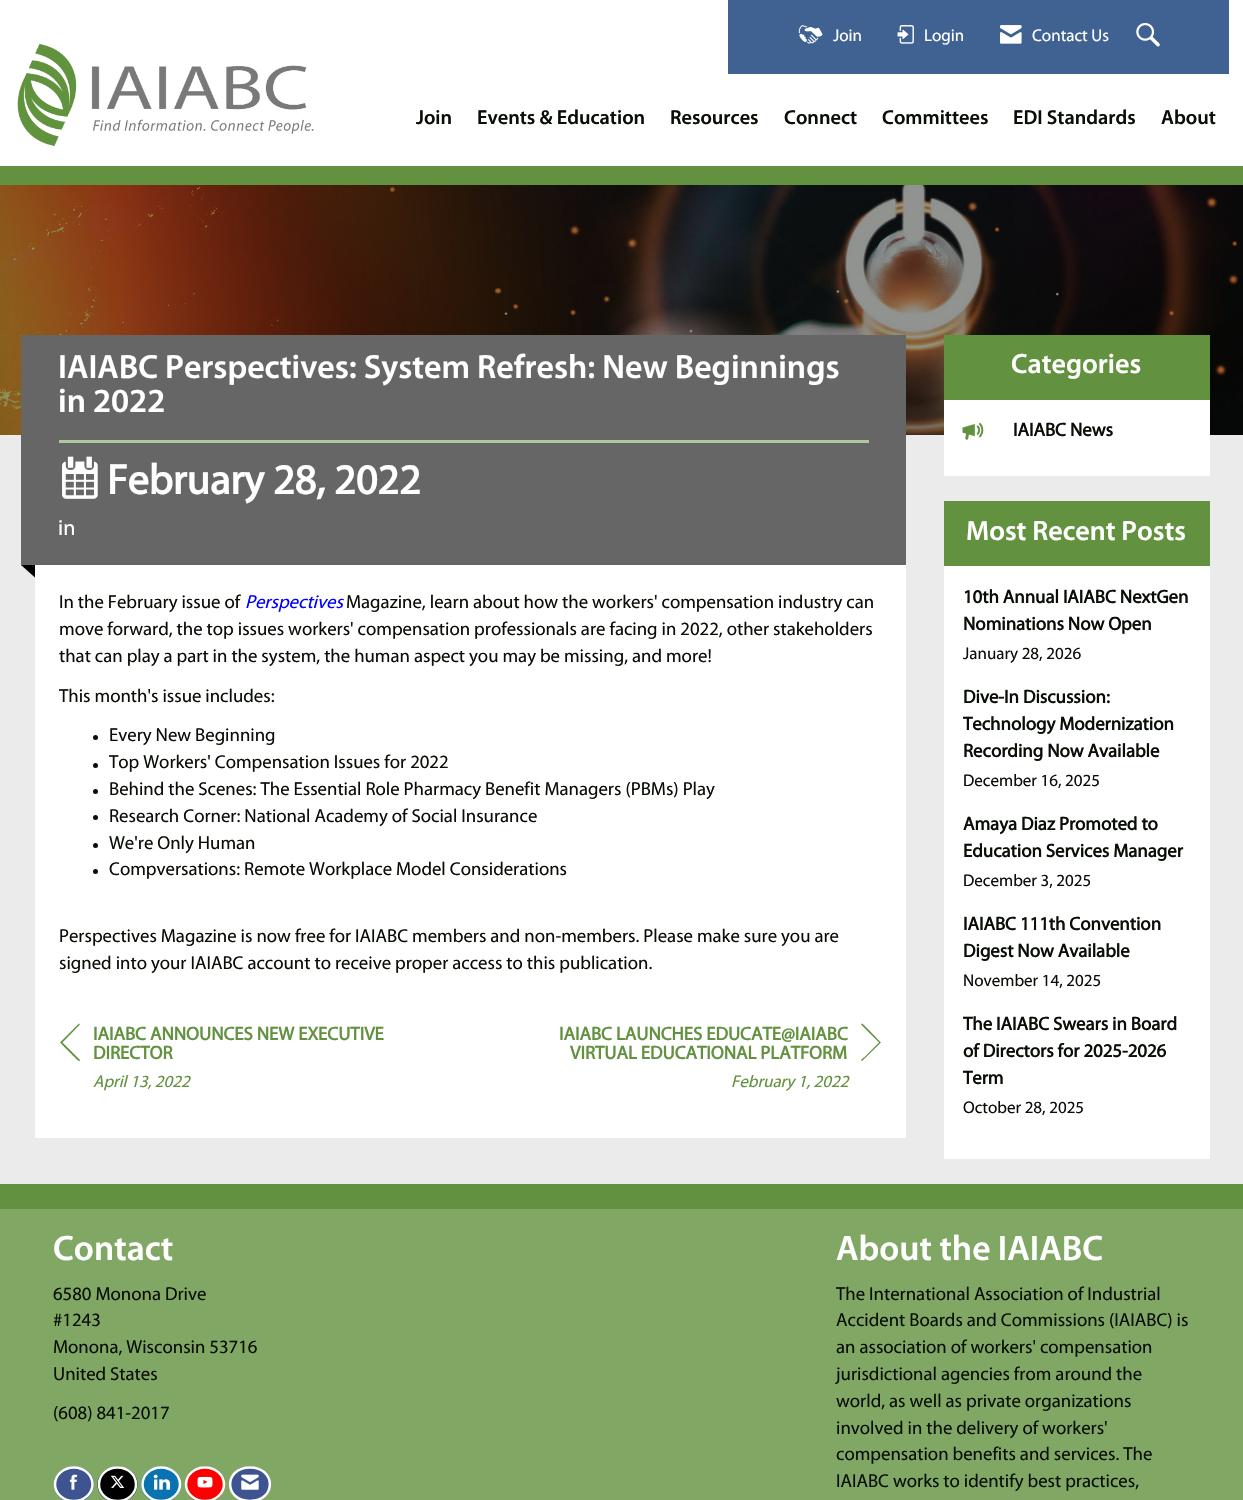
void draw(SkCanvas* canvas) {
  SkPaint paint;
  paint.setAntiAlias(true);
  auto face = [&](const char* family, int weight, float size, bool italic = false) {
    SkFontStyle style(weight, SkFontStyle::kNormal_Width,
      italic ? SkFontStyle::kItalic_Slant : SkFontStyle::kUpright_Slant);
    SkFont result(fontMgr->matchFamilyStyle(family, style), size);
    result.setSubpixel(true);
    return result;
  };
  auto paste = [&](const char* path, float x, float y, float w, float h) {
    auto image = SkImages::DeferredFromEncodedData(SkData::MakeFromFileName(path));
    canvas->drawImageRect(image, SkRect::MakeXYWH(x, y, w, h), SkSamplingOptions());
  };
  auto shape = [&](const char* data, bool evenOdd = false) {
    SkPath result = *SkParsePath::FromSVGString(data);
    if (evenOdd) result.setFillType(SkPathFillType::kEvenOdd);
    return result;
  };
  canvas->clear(0xffebebec);
  paint.setColor(0xffffffff);
  canvas->drawRect(SkRect::MakeXYWH(0, 0, 1243, 166), paint);
  paint.setColor(0xff3f6292);
  canvas->drawRect(SkRect::MakeXYWH(728, 0, 501, 74), paint);
  paste("img/1.png", 798, 25, 25, 19);
  paste("img/2.png", 897, 25, 17, 19);
  paste("img/3.png", 1000, 25, 22, 19);
  paste("img/4.png", 1136, 22, 24, 25);
  paste("img/5.png", 17, 43, 297, 104);
  paint.setColor(0xff62923f);
  canvas->drawRect(SkRect::MakeXYWH(0, 166, 1243, 19), paint);
  paste("img/6.png", 0, 185, 1243, 250);
  paint.setColor(0xff666666);
  canvas->drawRect(SkRect::MakeXYWH(21, 335, 885, 230), paint);
  paint.setColor(0xffb0c89f);
  canvas->drawRect(SkRect::MakeXYWH(59, 440, 810, 3), paint);
  paste("img/7.png", 62, 456, 36, 43);
  paint.setColor(0xff000000);
  canvas->drawPath(shape("M21 565H35V577.5Z"), paint);
  paint.setColor(0xffffffff);
  canvas->drawRect(SkRect::MakeXYWH(35, 565, 871, 573), paint);
  paint.setColor(0xff090e06);
  canvas->drawCircle(95.5f, 737.5f, 2.5f, paint);
  canvas->drawCircle(95.5f, 765.5f, 2.5f, paint);
  canvas->drawCircle(95.5f, 791.5f, 2.5f, paint);
  canvas->drawCircle(95.5f, 817.5f, 2.5f, paint);
  canvas->drawCircle(95.5f, 845.5f, 2.5f, paint);
  canvas->drawCircle(95.5f, 871.5f, 2.5f, paint);
  paint.setColor(0xff62923f);
  canvas->drawPath(shape("M79 1061C78 1061 62 1044.5 60 1042.5L79 1023.5C79.5 1023.5 80 1024.5 79.5 1025L62.5 1042.5L80 1060C80 1060.5 79.5 1061 79 1061Z"), paint);
  canvas->drawPath(shape("M862 1023.5C863 1023.5 879 1040.5 881 1042.5L862 1061H861.5C860.5 1059.5 863.5 1058 864.5 1057L879 1042.5L861.5 1025C861 1024.5 861.5 1023.5 862 1023.5Z"), paint);
  canvas->drawRect(SkRect::MakeXYWH(944, 335, 266, 65), paint);
  paint.setColor(0xffffffff);
  canvas->drawRect(SkRect::MakeXYWH(944, 400, 266, 76), paint);
  paste("img/8.png", 962, 422, 22, 18);
  {
    const struct { float x, y, w, h; SkColor color; } items[] = {
      {944, 501, 266, 65, 0xff62923f},
      {944, 566, 266, 593, 0xffffffff},
      {0, 1184, 1243, 25, 0xff62923f},
      {0, 1209, 1243, 291, 0xff81a765},
    };
    for (auto [x, y, w, h, color] : items) {
      paint.setColor(color);
      canvas->drawRect(SkRect::MakeXYWH(x, y, w, h), paint);
    }
  }
  paint.setColor(0xff3e5491);
  canvas->drawOval(SkRect::MakeXYWH(54, 1466.5f, 40, 36), paint);
  paint.setStroke(true);
  paint.setStrokeWidth(2.5f);
  paint.setColor(0xffffffff);
  canvas->drawPath(shape("M74 1467.5C84 1467.5 92.5 1475 92.5 1484.5C92.5 1493.5 84 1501 74 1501C63.5 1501 55 1493.5 55 1484.5C55 1475 63.5 1467.5 74 1467.5Z"), paint);
  paste("img/9.png", 69, 1474, 9, 16);
  paint.setStroke(false);
  paint.setColor(0xff000000);
  canvas->drawOval(SkRect::MakeXYWH(97.5f, 1466.5f, 40, 36), paint);
  paint.setStroke(true);
  paint.setColor(0xffffffff);
  canvas->drawPath(shape("M117.5 1467.5C128 1467.5 136 1475 136 1484.5C136 1493.5 128 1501 117.5 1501C107 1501 99 1493.5 99 1484.5C99 1475 107 1467.5 117.5 1467.5Z"), paint);
  paste("img/10.png", 110, 1475, 15, 13);
  paint.setStroke(false);
  paint.setColor(0xff0972b1);
  canvas->drawOval(SkRect::MakeXYWH(141, 1466.5f, 40, 36), paint);
  paint.setStroke(true);
  paint.setColor(0xffffffff);
  canvas->drawPath(shape("M161 1467.5C171.5 1467.5 180 1475 180 1484.5C180 1493.5 171.5 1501 161 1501C151 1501 142.5 1493.5 142.5 1484.5C142.5 1475 151 1467.5 161 1467.5Z"), paint);
  paste("img/11.png", 153, 1474, 18, 16);
  paint.setStroke(false);
  paint.setColor(0xffff0000);
  canvas->drawOval(SkRect::MakeXYWH(185, 1466.5f, 40, 36), paint);
  paint.setStroke(true);
  paint.setColor(0xffffffff);
  canvas->drawPath(shape("M205 1467.5C215.5 1467.5 224 1475 224 1484.5C224 1493.5 215.5 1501 205 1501C194.5 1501 186 1493.5 186 1484.5C186 1475 194.5 1467.5 205 1467.5Z"), paint);
  paste("img/12.png", 197, 1476, 16, 12);
  paint.setStroke(false);
  paint.setColor(0xff3e5491);
  canvas->drawOval(SkRect::MakeXYWH(229, 1466.5f, 42, 36), paint);
  paint.setStroke(true);
  paint.setColor(0xffffffff);
  canvas->drawPath(shape("M250 1467.5C276.5 1467.5 276.5 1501 250 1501C223.5 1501 223.5 1467.5 250 1467.5Z"), paint);
  paste("img/13.png", 241, 1474, 18, 16);
  auto f0 = face("Myriad", 400, 17);
  paint.setStroke(false);
  {
    const struct { const char* s; float x, y; } items[] = {
      {"Join", 833, 41},
      {"Login", 924, 41},
      {"Contact Us", 1032, 41},
    };
    for (auto [s, x, y] : items) {
      canvas->drawString(s, x, y, f0, paint);
    }
  }
  auto f1 = face("Myriad", 600, 20.25f);
  paint.setColor(0xff090e06);
  {
    const struct { const char* s; float x, y; } items[] = {
      {"Join", 416, 124},
      {"Events & Education", 477, 124},
      {"Resources", 670, 124},
      {"Connect", 784, 124},
      {"Committees", 882, 124},
      {"EDI Standards", 1013, 124},
      {"About", 1161, 124},
    };
    for (auto [s, x, y] : items) {
      canvas->drawString(s, x, y, f1, paint);
    }
  }
  auto f2 = face("Myriad", 600, 33.75f);
  paint.setColor(0xffffffff);
  canvas->drawString("IAIABC Perspectives: System Refresh: New Beginnings", 58, 378, f2, paint);
  canvas->drawString("in 2022", 58, 412, f2, paint);
  auto f3 = face("Myriad", 700, 42.25f);
  canvas->drawString("February 28, 2022", 107, 494, f3, paint);
  auto f4 = face("Myriad", 400, 22);
  canvas->drawString("in", 58, 535, f4, paint);
  auto f5 = face("Myriad", 400, 18.75f);
  paint.setColor(0xff090e06);
  canvas->drawString("In the February issue of", 59, 608, f5, paint);
  auto f6 = face("Myriad", 400, 18.75f, true);
  paint.setColor(0xff0000ff);
  canvas->drawString("Perspectives", 245, 608, f6, paint);
  paint.setColor(0xff090e06);
  {
    const struct { const char* s; float x, y; } items[] = {
      {"Magazine, learn about how the workers' compensation industry can", 346, 608},
      {"move forward, the top issues workers' compensation professionals are facing in 2022, other stakeholders", 59, 635},
      {"that can play a part in the system, the human aspect you may be missing, and more!", 59, 662},
      {"This month's issue includes:", 59, 702},
      {"Every New Beginning", 109, 741},
      {"Top Workers' Compensation Issues for 2022", 109, 768},
      {"Behind the Scenes: The Essential Role Pharmacy Benefit Managers (PBMs) Play", 109, 795},
      {"Research Corner: National Academy of Social Insurance", 109, 822},
      {"We're Only Human", 109, 849},
      {"Compversations: Remote Workplace Model Considerations", 109, 875},
      {"Perspectives Magazine is now free for IAIABC members and non-members. Please make sure you are", 59, 942},
      {"signed into your IAIABC account to receive proper access to this publication.", 59, 969},
    };
    for (auto [s, x, y] : items) {
      canvas->drawString(s, x, y, f5, paint);
    }
  }
  auto f7 = face("Myriad", 700, 18.75f);
  paint.setColor(0xff62923f);
  canvas->drawString("IAIABC ANNOUNCES NEW EXECUTIVE", 93, 1040, f7, paint);
  canvas->drawString("DIRECTOR", 93, 1059, f7, paint);
  auto f8 = face("Myriad", 400, 17, true);
  canvas->drawString("April 13, 2022", 93, 1087, f8, paint);
  canvas->drawString("IAIABC LAUNCHES EDUCATE@IAIABC", 559, 1040, f7, paint);
  canvas->drawString("VIRTUAL EDUCATIONAL PLATFORM", 570, 1059, f7, paint);
  canvas->drawString("February 1, 2022", 731, 1087, f8, paint);
  auto f9 = face("Myriad", 600, 28);
  paint.setColor(0xffffffff);
  canvas->drawString("Categories", 1011, 373, f9, paint);
  paint.setColor(0xff090e06);
  canvas->drawString("IAIABC News", 1013, 436, f7, paint);
  paint.setColor(0xffffffff);
  canvas->drawString("Most Recent Posts", 966, 540, f9, paint);
  paint.setColor(0xff090e06);
  canvas->drawString("10th Annual IAIABC NextGen", 963, 603, f7, paint);
  canvas->drawString("Nominations Now Open", 963, 630, f7, paint);
  canvas->drawString("January 28, 2026", 963, 659, f0, paint);
  {
    const struct { const char* s; float x, y; } items[] = {
      {"Dive-In Discussion:", 963, 703},
      {"Technology Modernization", 963, 730},
      {"Recording Now Available", 963, 757},
    };
    for (auto [s, x, y] : items) {
      canvas->drawString(s, x, y, f7, paint);
    }
  }
  canvas->drawString("December 16, 2025", 963, 786, f0, paint);
  canvas->drawString("Amaya Diaz Promoted to", 963, 830, f7, paint);
  canvas->drawString("Education Services Manager", 963, 857, f7, paint);
  canvas->drawString("December 3, 2025", 963, 886, f0, paint);
  canvas->drawString("IAIABC 111th Convention", 963, 930, f7, paint);
  canvas->drawString("Digest Now Available", 963, 957, f7, paint);
  canvas->drawString("November 14, 2025", 963, 986, f0, paint);
  {
    const struct { const char* s; float x, y; } items[] = {
      {"The IAIABC Swears in Board", 963, 1030},
      {"of Directors for 2025-2026", 963, 1057},
      {"Term", 963, 1084},
    };
    for (auto [s, x, y] : items) {
      canvas->drawString(s, x, y, f7, paint);
    }
  }
  canvas->drawString("October 28, 2025", 963, 1113, f0, paint);
  auto f10 = face("Myriad", 600, 35.5f);
  paint.setColor(0xffffffff);
  canvas->drawString("Contact", 53, 1260, f10, paint);
  paint.setColor(0xff090e06);
  {
    const struct { const char* s; float x, y; } items[] = {
      {"6580 Monona Drive", 53, 1300},
      {"#1243", 53, 1326},
      {"Monona, Wisconsin 53716", 53, 1353},
      {"United States", 53, 1380},
      {"(608) 841-2017", 53, 1419},
    };
    for (auto [s, x, y] : items) {
      canvas->drawString(s, x, y, f5, paint);
    }
  }
  paint.setColor(0xffffffff);
  canvas->drawString("About the IAIABC", 836, 1260, f10, paint);
  paint.setColor(0xff090e06);
  {
    const struct { const char* s; float x, y; } items[] = {
      {"The International Association of Industrial", 836, 1300},
      {"Accident Boards and Commissions (IAIABC) is", 836, 1326},
      {"an association of workers' compensation", 836, 1353},
      {"jurisdictional agencies from around the", 836, 1380},
      {"world, as well as private organizations", 836, 1407},
      {"involved in the delivery of workers'", 836, 1434},
      {"compensation benefits and services. The", 836, 1460},
      {"IAIABC works to identify best practices,", 836, 1487},
    };
    for (auto [s, x, y] : items) {
      canvas->drawString(s, x, y, f5, paint);
    }
  }
}
